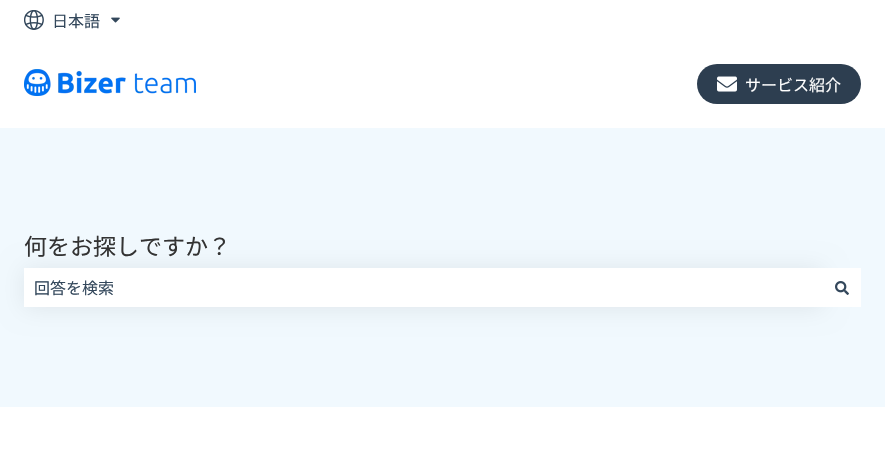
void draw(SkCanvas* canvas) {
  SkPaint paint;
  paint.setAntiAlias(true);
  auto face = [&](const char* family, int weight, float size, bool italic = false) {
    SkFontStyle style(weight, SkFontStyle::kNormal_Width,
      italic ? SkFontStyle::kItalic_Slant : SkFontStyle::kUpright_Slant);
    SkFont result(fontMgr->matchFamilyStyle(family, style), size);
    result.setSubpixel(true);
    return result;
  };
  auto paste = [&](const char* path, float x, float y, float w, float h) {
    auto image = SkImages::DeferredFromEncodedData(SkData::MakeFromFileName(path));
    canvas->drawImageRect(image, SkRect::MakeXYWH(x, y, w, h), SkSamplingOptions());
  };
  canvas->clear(0xffffffff);
  paste("img/1.png", 24, 10, 20, 20);
  paste("img/2.png", 111, 17, 9, 6);
  paste("img/3.png", 24, 69, 172, 27);
  paint.setColor(0xff2d3e50);
  canvas->drawRoundRect(SkRect::MakeXYWH(697, 64, 164, 40), 20, 20, paint);
  paste("img/4.png", 717, 76, 20, 16);
  paint.setColor(0xfff1f9fe);
  canvas->drawRect(SkRect::MakeXYWH(0, 128, 885, 279), paint);
  paint.setColor(0x14000000);
  paint.setMaskFilter(SkMaskFilter::MakeBlur(kNormal_SkBlurStyle, 12));
  canvas->drawRect(SkRect::MakeXYWH(24, 269, 799, 39), paint);
  paint.setMaskFilter(nullptr);
  paint.setColor(0xffffffff);
  canvas->drawRect(SkRect::MakeXYWH(24, 268, 837, 39), paint);
  paste("img/5.png", 835, 281, 14, 14);
  auto f0 = face("Noto Sans JP", 400, 16);
  paint.setColor(0xff33475b);
  canvas->drawString("日本語", 52, 27, f0, paint);
  paint.setColor(0xffffffff);
  canvas->drawString("サービス紹介", 745, 91, f0, paint);
  auto f1 = face("Noto Sans JP", 400, 23);
  paint.setColor(0xff333333);
  canvas->drawString("何をお探しですか？", 24, 255, f1, paint);
  paint.setColor(0xff33475b);
  canvas->drawString("回答を検索", 34, 294, f0, paint);
}
